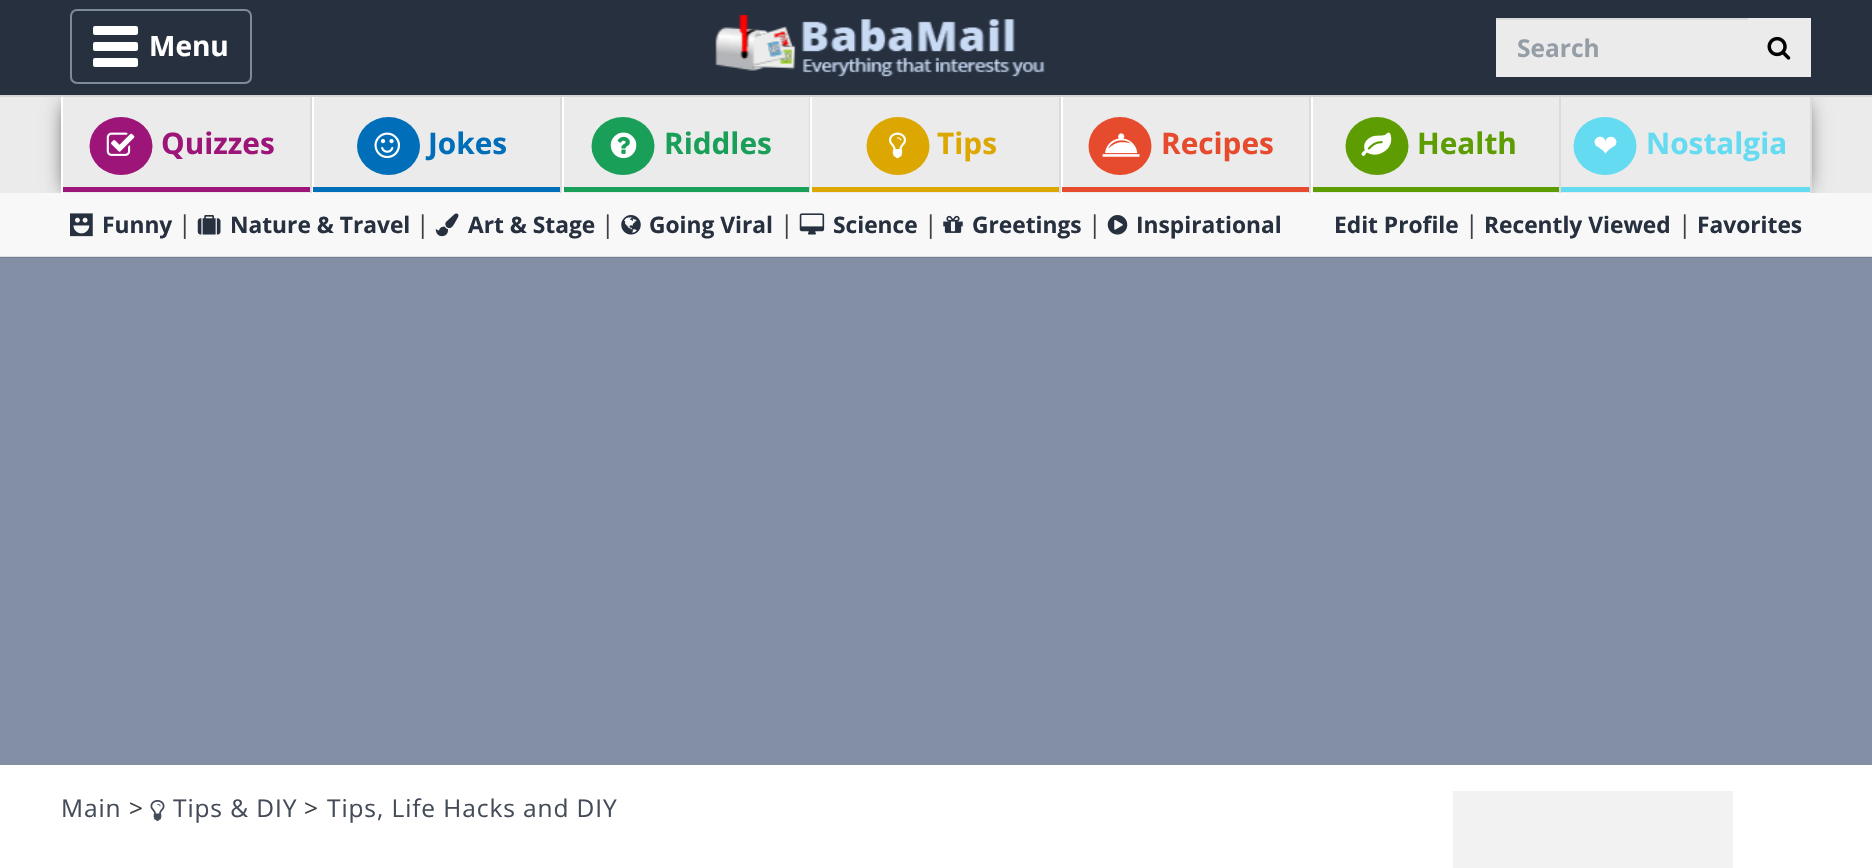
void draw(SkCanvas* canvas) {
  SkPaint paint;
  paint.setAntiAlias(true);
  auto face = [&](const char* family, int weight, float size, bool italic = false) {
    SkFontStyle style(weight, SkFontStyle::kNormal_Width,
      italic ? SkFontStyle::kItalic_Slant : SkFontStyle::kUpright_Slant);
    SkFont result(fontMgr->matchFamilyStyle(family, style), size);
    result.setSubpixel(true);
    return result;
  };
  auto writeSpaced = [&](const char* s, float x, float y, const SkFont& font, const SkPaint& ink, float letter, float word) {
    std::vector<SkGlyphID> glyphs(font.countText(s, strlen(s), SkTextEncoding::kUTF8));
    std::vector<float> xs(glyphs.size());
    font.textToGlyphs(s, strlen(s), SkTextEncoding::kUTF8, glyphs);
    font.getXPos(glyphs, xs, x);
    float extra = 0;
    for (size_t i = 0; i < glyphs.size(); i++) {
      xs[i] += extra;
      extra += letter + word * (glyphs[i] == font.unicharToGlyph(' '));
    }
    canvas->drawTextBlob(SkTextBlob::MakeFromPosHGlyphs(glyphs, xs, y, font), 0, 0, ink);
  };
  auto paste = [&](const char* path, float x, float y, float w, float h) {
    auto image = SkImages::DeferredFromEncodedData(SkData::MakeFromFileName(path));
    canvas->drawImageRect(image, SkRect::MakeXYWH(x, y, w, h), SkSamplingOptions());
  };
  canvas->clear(0xffffffff);
  paint.setColor(0xff838fa4);
  canvas->drawRect(SkRect::MakeXYWH(0, 258, 1872, 507), paint);
  paint.setColor(0xffebebeb);
  canvas->drawRect(SkRect::MakeXYWH(0, 97, 1872, 96), paint);
  paint.setColor(0xff141820);
  paint.setMaskFilter(SkMaskFilter::MakeBlur(kNormal_SkBlurStyle, 10.5f));
  canvas->drawRect(SkRect::MakeXYWH(68, 105, 1736, 84), paint);
  paint.setMaskFilter(nullptr);
  {
    const struct { float x, y, w, h; SkColor color; } items[] = {
      {0, 0, 1872, 95, 0xff27303f},
      {63, 97, 1747, 96, 0xffebebeb},
      {310, 95, 2, 98, 0xffdadbdd},
      {61, 95, 2, 98, 0xffffffff},
      {560, 95, 2, 98, 0xffdadbdd},
      {312, 95, 2, 98, 0xffffffff},
      {809, 95, 1, 98, 0xffdadbdd},
      {562, 95, 2, 98, 0xffffffff},
      {1059, 95, 2, 98, 0xffdadbdd},
      {810, 95, 2, 98, 0xffffffff},
      {1309, 95, 2, 98, 0xffdadbdd},
      {1061, 95, 2, 98, 0xffffffff},
      {1559, 95, 2, 98, 0xffdadbdd},
      {1311, 95, 2, 98, 0xffffffff},
      {1810, 95, 2, 98, 0xffdadbdd},
      {0, 95, 1872, 2, 0xffd5d5d5},
    };
    for (auto [x, y, w, h, color] : items) {
      paint.setColor(color);
      canvas->drawRect(SkRect::MakeXYWH(x, y, w, h), paint);
    }
  }
  paint.setStroke(true);
  paint.setStrokeWidth(2);
  paint.setColor(0xff7f8a9c);
  canvas->drawRoundRect(SkRect::MakeXYWH(71, 10, 180, 73), 6, 6, paint);
  paint.setStroke(false);
  paint.setColor(0xffffffff);
  canvas->drawRoundRect(SkRect::MakeXYWH(93, 26, 45, 9), 2, 2, paint);
  canvas->drawRoundRect(SkRect::MakeXYWH(93, 42, 45, 9), 2, 2, paint);
  canvas->drawRoundRect(SkRect::MakeXYWH(93, 58, 45, 9), 2, 2, paint);
  paste("img/1.png", 715, 14, 330, 63);
  {
    const struct { float x, y, w, h; SkColor color; } items[] = {
      {1496, 20, 252, 57, 0xffebebeb},
      {1496, 18, 252, 2, 0xffd9d9d9},
      {1748, 18, 63, 59, 0xffebebeb},
    };
    for (auto [x, y, w, h, color] : items) {
      paint.setColor(color);
      canvas->drawRect(SkRect::MakeXYWH(x, y, w, h), paint);
    }
  }
  paste("img/2.png", 1767, 36, 24, 24);
  paint.setColor(0xff9d1579);
  canvas->drawRect(SkRect::MakeXYWH(63, 187, 247, 5), paint);
  canvas->drawOval(SkRect::MakeXYWH(89.5f, 117, 63, 58), paint);
  paste("img/3.png", 106, 132, 29, 24);
  paint.setColor(0xff006eb9);
  canvas->drawRect(SkRect::MakeXYWH(313, 187, 247, 5), paint);
  canvas->drawOval(SkRect::MakeXYWH(357, 117, 63, 58), paint);
  paste("img/4.png", 374, 132, 26, 27);
  paint.setColor(0xff1a9f59);
  canvas->drawRect(SkRect::MakeXYWH(564, 187, 245, 5), paint);
  canvas->drawOval(SkRect::MakeXYWH(591.5f, 117, 63, 58), paint);
  paste("img/5.png", 610, 132, 27, 27);
  paint.setColor(0xffdba700);
  canvas->drawRect(SkRect::MakeXYWH(812, 187, 247, 5), paint);
  canvas->drawOval(SkRect::MakeXYWH(866.5f, 117, 63, 58), paint);
  paste("img/6.png", 889, 132, 17, 27);
  paint.setColor(0xffe74b2d);
  canvas->drawRect(SkRect::MakeXYWH(1062, 187, 247, 5), paint);
  canvas->drawOval(SkRect::MakeXYWH(1088.5f, 117, 63, 58), paint);
  paste("img/7.png", 1102, 133, 38, 24);
  paint.setColor(0xff5d9d02);
  canvas->drawRect(SkRect::MakeXYWH(1313, 187, 246, 5), paint);
  canvas->drawOval(SkRect::MakeXYWH(1345.5f, 117, 63, 58), paint);
  paste("img/8.png", 1361, 132, 31, 24);
  paint.setColor(0xff65dbf1);
  canvas->drawRect(SkRect::MakeXYWH(1561, 187, 249, 5), paint);
  canvas->drawOval(SkRect::MakeXYWH(1573.5f, 117, 63, 58), paint);
  {
    const struct { float x, y, w, h; SkColor color; } items[] = {
      {0, 193, 1872, 63, 0xfff8f8f8},
      {0, 256, 1872, 1, 0xffe0e0e0},
      {0, 257, 1872, 1, 0xff748094},
    };
    for (auto [x, y, w, h, color] : items) {
      paint.setColor(color);
      canvas->drawRect(SkRect::MakeXYWH(x, y, w, h), paint);
    }
  }
  paste("img/9.png", 70, 213, 23, 24);
  paste("img/10.png", 197, 215, 24, 20);
  paste("img/11.png", 435, 213, 24, 24);
  paste("img/12.png", 621, 215, 20, 20);
  paste("img/13.png", 799, 213, 26, 22);
  paste("img/14.png", 943, 215, 20, 18);
  paste("img/15.png", 1107, 215, 21, 20);
  paste("img/16.png", 150, 799, 15, 22);
  paint.setColor(0xfff2f2f2);
  canvas->drawRect(SkRect::MakeXYWH(1453, 791, 280, 77), paint);
  auto f0 = face("Open Sans", 700, 28);
  paint.setColor(0xffffffff);
  canvas->drawString("Menu", 149, 56, f0, paint);
  auto f1 = face("Open Sans", 700, 24.5f);
  paint.setColor(0xff959da7);
  canvas->drawString("Search", 1517, 57, f1, paint);
  auto f2 = face("Open Sans", 700, 29.75f);
  paint.setColor(0xff9d1579);
  canvas->drawString("Quizzes", 161, 154, f2, paint);
  paint.setColor(0xff006eb9);
  canvas->drawString("Jokes", 428, 154, f2, paint);
  paint.setColor(0xff1a9f59);
  canvas->drawString("Riddles", 664, 154, f2, paint);
  paint.setColor(0xffdba700);
  canvas->drawString("Tips", 937, 154, f2, paint);
  paint.setColor(0xffe74b2d);
  canvas->drawString("Recipes", 1161, 154, f2, paint);
  paint.setColor(0xff5d9d02);
  canvas->drawString("Health", 1417, 154, f2, paint);
  auto f3 = face("DejaVu Sans", 400, 29.75f);
  paint.setColor(0xffffffff);
  canvas->drawString("❤", 1593, 156, f3, paint);
  paint.setColor(0xff65dbf1);
  canvas->drawString("Nostalgia", 1646, 154, f2, paint);
  auto f4 = face("Open Sans", 700, 22.75f);
  paint.setColor(0xff27303f);
  canvas->drawString("Funny", 102, 233, f4, paint);
  auto f5 = face("Open Sans", 400, 24.5f);
  paint.setColor(0xff404040);
  canvas->drawString("|", 178, 233, f5, paint);
  paint.setColor(0xff27303f);
  canvas->drawString("Nature & Travel", 230, 233, f4, paint);
  paint.setColor(0xff404040);
  canvas->drawString("|", 416, 233, f5, paint);
  paint.setColor(0xff27303f);
  canvas->drawString("Art & Stage", 468, 233, f4, paint);
  paint.setColor(0xff404040);
  canvas->drawString("|", 601, 233, f5, paint);
  paint.setColor(0xff27303f);
  canvas->drawString("Going Viral", 649, 233, f4, paint);
  paint.setColor(0xff404040);
  canvas->drawString("|", 780, 233, f5, paint);
  paint.setColor(0xff27303f);
  canvas->drawString("Science", 833, 233, f4, paint);
  paint.setColor(0xff404040);
  canvas->drawString("|", 924, 233, f5, paint);
  paint.setColor(0xff27303f);
  canvas->drawString("Greetings", 972, 233, f4, paint);
  paint.setColor(0xff404040);
  canvas->drawString("|", 1088, 233, f5, paint);
  paint.setColor(0xff27303f);
  canvas->drawString("Inspirational", 1136, 233, f4, paint);
  canvas->drawString("Edit Profile", 1334, 233, f4, paint);
  paint.setColor(0xff404040);
  canvas->drawString("|", 1465, 233, f5, paint);
  paint.setColor(0xff27303f);
  canvas->drawString("Recently Viewed", 1484, 233, f4, paint);
  paint.setColor(0xff404040);
  canvas->drawString("|", 1678, 233, f5, paint);
  paint.setColor(0xff27303f);
  canvas->drawString("Favorites", 1697, 233, f4, paint);
  paint.setColor(0xff444c5a);
  writeSpaced("Main", 61, 817, f5, paint, 0.9f, 0);
  paint.setColor(0xff404040);
  writeSpaced(">", 129, 817, f5, paint, 0.9f, 0);
  paint.setColor(0xff444c5a);
  writeSpaced("Tips & DIY", 173, 817, f5, paint, 0.9f, 0);
  paint.setColor(0xff404040);
  writeSpaced(">", 304, 817, f5, paint, 0.9f, 0);
  paint.setColor(0xff444c5a);
  writeSpaced("Tips, Life Hacks and DIY", 327, 817, f5, paint, 0.9f, 0);
}
